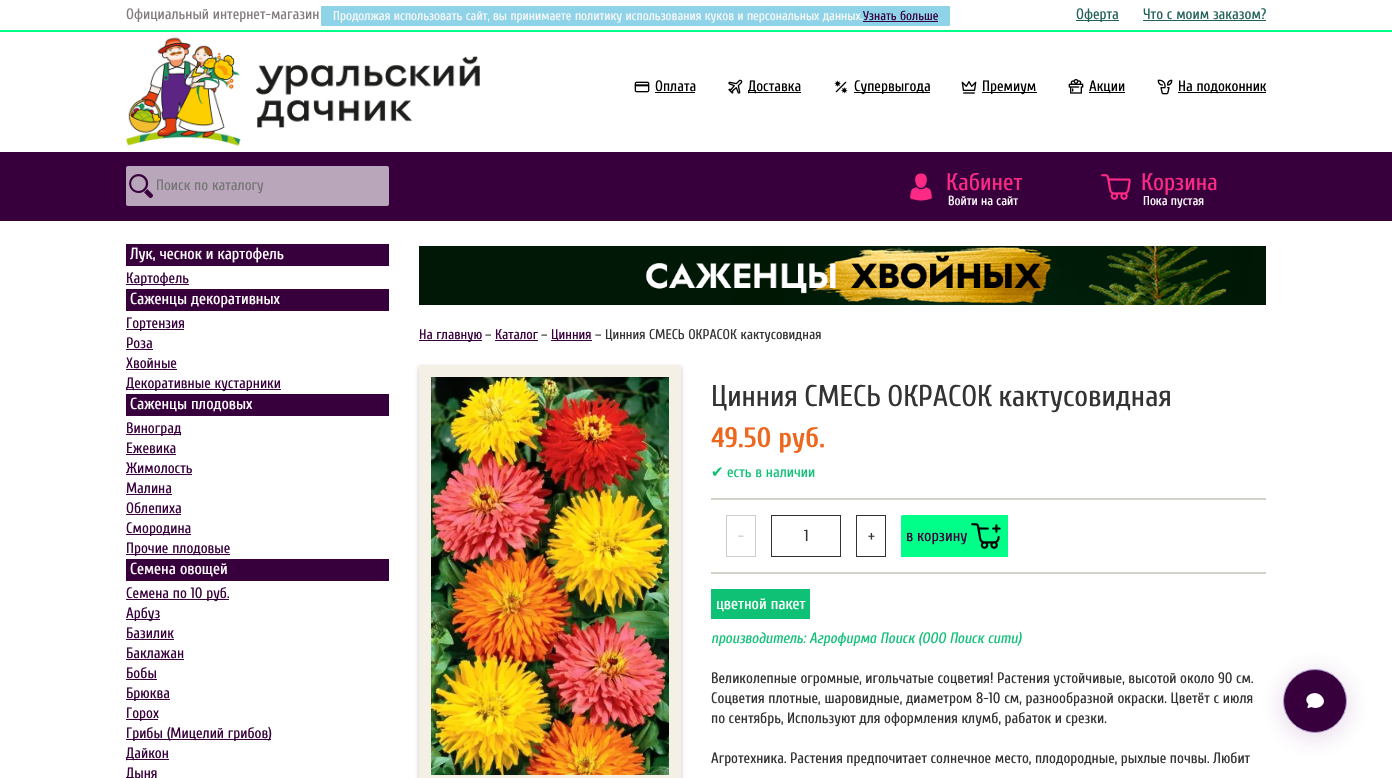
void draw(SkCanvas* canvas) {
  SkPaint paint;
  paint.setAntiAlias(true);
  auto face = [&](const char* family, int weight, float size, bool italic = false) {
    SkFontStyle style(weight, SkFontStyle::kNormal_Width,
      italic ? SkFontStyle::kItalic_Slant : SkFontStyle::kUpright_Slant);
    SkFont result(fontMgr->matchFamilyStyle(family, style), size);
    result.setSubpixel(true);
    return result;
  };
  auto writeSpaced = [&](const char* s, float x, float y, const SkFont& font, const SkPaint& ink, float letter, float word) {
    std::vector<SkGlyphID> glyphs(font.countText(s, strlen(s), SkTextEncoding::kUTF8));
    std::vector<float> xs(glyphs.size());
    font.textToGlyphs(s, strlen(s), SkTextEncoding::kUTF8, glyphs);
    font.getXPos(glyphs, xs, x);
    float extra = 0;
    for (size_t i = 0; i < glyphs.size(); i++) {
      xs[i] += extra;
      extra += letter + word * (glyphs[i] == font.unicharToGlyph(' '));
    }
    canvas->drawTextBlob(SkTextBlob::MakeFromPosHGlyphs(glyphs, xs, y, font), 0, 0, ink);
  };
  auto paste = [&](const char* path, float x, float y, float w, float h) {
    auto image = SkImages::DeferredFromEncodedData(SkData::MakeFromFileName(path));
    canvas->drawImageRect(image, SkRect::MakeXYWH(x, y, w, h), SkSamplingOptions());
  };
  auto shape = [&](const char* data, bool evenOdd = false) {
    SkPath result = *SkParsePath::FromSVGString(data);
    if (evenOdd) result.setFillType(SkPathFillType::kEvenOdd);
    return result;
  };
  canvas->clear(0xffffffff);
  {
    const struct { float x, y, w, h; SkColor color; } items[] = {
      {0, 30, 1392, 2, 0xff00ff88},
      {1076, 20, 43, 1, 0xff226159},
      {1143, 20, 123, 1, 0xff226159},
    };
    for (auto [x, y, w, h, color] : items) {
      paint.setColor(color);
      canvas->drawRect(SkRect::MakeXYWH(x, y, w, h), paint);
    }
  }
  paste("img/1.png", 126, 37, 354, 110);
  paste("img/2.png", 634, 81, 16, 12);
  paint.setColor(0xff000000);
  canvas->drawRect(SkRect::MakeXYWH(655, 92, 40, 1), paint);
  paste("img/3.png", 728, 79, 15, 15);
  canvas->drawRect(SkRect::MakeXYWH(748, 92, 53, 1), paint);
  paste("img/4.png", 834, 80, 14, 14);
  canvas->drawRect(SkRect::MakeXYWH(854, 92, 76, 1), paint);
  paste("img/5.png", 961, 81, 16, 13);
  canvas->drawRect(SkRect::MakeXYWH(982, 92, 55, 1), paint);
  paste("img/6.png", 1068, 79, 16, 15);
  canvas->drawRect(SkRect::MakeXYWH(1089, 92, 36, 1), paint);
  paste("img/7.png", 1157, 79, 16, 16);
  canvas->drawRect(SkRect::MakeXYWH(1178, 92, 88, 1), paint);
  paint.setColor(0xff37003c);
  canvas->drawRect(SkRect::MakeXYWH(0, 152, 1392, 69), paint);
  paint.setColor(0xffb9a6bb);
  canvas->drawRoundRect(SkRect::MakeXYWH(126, 166, 263, 40), 2, 2, paint);
  paste("img/8.png", 129, 174, 24, 24);
  paste("img/9.png", 910, 173, 22, 28);
  paste("img/10.png", 1101, 174, 30, 26);
  paint.setColor(0xff8ed3e7);
  canvas->drawRoundRect(SkRect::MakeXYWH(321, 6, 629, 20), 1, 1, paint);
  {
    const struct { float x, y, w, h; SkColor color; } items[] = {
      {863, 21, 75, 1, 0xff37003c},
      {126, 244, 263, 22, 0xff37003c},
      {126, 284, 63, 1, 0xff37003c},
      {126, 289, 263, 22, 0xff37003c},
      {126, 329, 58, 1, 0xff37003c},
      {126, 349, 27, 1, 0xff37003c},
      {126, 369, 51, 1, 0xff37003c},
      {126, 389, 155, 1, 0xff37003c},
      {126, 394, 263, 22, 0xff37003c},
      {126, 434, 55, 1, 0xff37003c},
      {126, 454, 50, 1, 0xff37003c},
      {126, 474, 66, 1, 0xff37003c},
      {126, 494, 46, 1, 0xff37003c},
      {126, 514, 55, 1, 0xff37003c},
      {126, 534, 65, 1, 0xff37003c},
      {126, 554, 104, 1, 0xff37003c},
      {126, 559, 263, 22, 0xff37003c},
      {126, 599, 103, 1, 0xff37003c},
      {126, 619, 34, 1, 0xff37003c},
      {126, 639, 48, 1, 0xff37003c},
      {126, 659, 58, 1, 0xff37003c},
      {126, 679, 31, 1, 0xff37003c},
      {126, 699, 44, 1, 0xff37003c},
      {126, 719, 32, 1, 0xff37003c},
      {126, 739, 145, 1, 0xff37003c},
      {126, 759, 43, 1, 0xff37003c},
    };
    for (auto [x, y, w, h, color] : items) {
      paint.setColor(color);
      canvas->drawRect(SkRect::MakeXYWH(x, y, w, h), paint);
    }
  }
  paste("img/11.png", 419, 246, 847, 59);
  {
    const struct { float x, y, w, h; SkColor color; } items[] = {
      {419, 340, 63, 1, 0xff37003c},
      {495, 340, 43, 1, 0xff37003c},
      {551, 340, 41, 1, 0xff37003c},
    };
    for (auto [x, y, w, h, color] : items) {
      paint.setColor(color);
      canvas->drawRect(SkRect::MakeXYWH(x, y, w, h), paint);
    }
  }
  paint.setColor(0x40000000);
  paint.setMaskFilter(SkMaskFilter::MakeBlur(kNormal_SkBlurStyle, 2));
  canvas->drawRect(SkRect::MakeXYWH(419, 367, 262, 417), paint);
  paint.setMaskFilter(nullptr);
  paint.setStroke(true);
  paint.setStrokeWidth(12);
  paint.setColor(0xfff4f0e6);
  canvas->drawRect(SkRect::MakeXYWH(425, 371, 250, 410), paint);
  paste("img/12.png", 431, 377, 238, 398);
  paint.setStroke(false);
  paint.setColor(0xffd1d1c8);
  canvas->drawRect(SkRect::MakeXYWH(711, 498, 555, 2), paint);
  canvas->drawRect(SkRect::MakeXYWH(711, 572, 555, 2), paint);
  paint.setStroke(true);
  paint.setStrokeWidth(1);
  paint.setColor(0xffcccccc);
  canvas->drawRect(SkRect::MakeXYWH(726.5f, 515.5f, 29, 41), paint);
  paint.setColor(0xff333333);
  canvas->drawRect(SkRect::MakeXYWH(771.5f, 515.5f, 69, 41), paint);
  canvas->drawRect(SkRect::MakeXYWH(856.5f, 515.5f, 29, 41), paint);
  paint.setStroke(false);
  paint.setColor(0xff00ff88);
  canvas->drawPath(shape("M903 515H1008V557H901V517C901 516 902 515 903 515Z"), paint);
  paste("img/13.png", 971, 523, 30, 26);
  paint.setStroke(true);
  canvas->drawPath(shape("M903 515.5H1007.5V556.5H901.5V517C901.5 516 902 515.5 903 515.5Z"), paint);
  paint.setStroke(false);
  paint.setColor(0xff0ec175);
  canvas->drawRect(SkRect::MakeXYWH(711, 589, 99, 30), paint);
  paint.setColor(0x2e6c0e74);
  paint.setMaskFilter(SkMaskFilter::MakeBlur(kNormal_SkBlurStyle, 12));
  canvas->drawRoundRect(SkRect::MakeXYWH(1283, 673, 64, 64), 32, 32, paint);
  paint.setMaskFilter(nullptr);
  paint.setColor(0xff37003c);
  canvas->drawCircle(1315, 701, 31.5f, paint);
  paint.setStroke(true);
  paint.setColor(0xffae9bcd);
  canvas->drawCircle(1315, 701, 31.5f, paint);
  paste("img/14.png", 1306, 693, 18, 15);
  auto f0 = face("Cuprum", 400, 15);
  paint.setStroke(false);
  paint.setColor(0xff817a7f);
  canvas->drawString("Официальный интернет-магазин", 126, 19, f0, paint);
  paint.setColor(0xff226159);
  canvas->drawString("Оферта", 1076, 19, f0, paint);
  canvas->drawString("Что с моим заказом?", 1143, 19, f0, paint);
  paint.setColor(0xff000000);
  {
    const struct { const char* s; float x, y; } items[] = {
      {"Оплата", 655, 91},
      {"Доставка", 748, 91},
      {"Супервыгода", 854, 91},
      {"Премиум", 982, 91},
      {"Акции", 1089, 91},
      {"На подоконник", 1178, 91},
    };
    for (auto [s, x, y] : items) {
      canvas->drawString(s, x, y, f0, paint);
    }
  }
  paint.setColor(0xff757575);
  canvas->drawString("Поиск по каталогу", 156, 190, f0, paint);
  auto f1 = face("Cuprum", 400, 24);
  paint.setColor(0xfffc2985);
  canvas->drawString("Кабинет", 946, 190, f1, paint);
  auto f2 = face("Cuprum", 400, 13);
  paint.setColor(0xffffffff);
  canvas->drawString("Войти на сайт", 948, 205, f2, paint);
  paint.setColor(0xfffc2985);
  canvas->drawString("Корзина", 1141, 190, f1, paint);
  paint.setColor(0xffffffff);
  canvas->drawString("Пока пустая", 1143, 205, f2, paint);
  paint.setColor(0xfff7f7f7);
  writeSpaced("Продолжая использовать сайт, вы принимаете политику использования куков и персональных данных.", 333, 20, f2, paint, 0, 0.1f);
  paint.setColor(0xff37003c);
  canvas->drawString("Узнать больше", 863, 20, f2, paint);
  auto f3 = face("Cuprum", 400, 16);
  paint.setColor(0xffffffff);
  canvas->drawString("Лук, чеснок и картофель", 130, 259, f3, paint);
  paint.setColor(0xff37003c);
  canvas->drawString("Картофель", 126, 283, f0, paint);
  paint.setColor(0xffffffff);
  canvas->drawString("Саженцы декоративных", 130, 304, f3, paint);
  paint.setColor(0xff37003c);
  {
    const struct { const char* s; float x, y; } items[] = {
      {"Гортензия", 126, 328},
      {"Роза", 126, 348},
      {"Хвойные", 126, 368},
      {"Декоративные кустарники", 126, 388},
    };
    for (auto [s, x, y] : items) {
      canvas->drawString(s, x, y, f0, paint);
    }
  }
  paint.setColor(0xffffffff);
  canvas->drawString("Саженцы плодовых", 130, 409, f3, paint);
  paint.setColor(0xff37003c);
  {
    const struct { const char* s; float x, y; } items[] = {
      {"Виноград", 126, 433},
      {"Ежевика", 126, 453},
      {"Жимолость", 126, 473},
      {"Малина", 126, 493},
      {"Облепиха", 126, 513},
      {"Смородина", 126, 533},
      {"Прочие плодовые", 126, 553},
    };
    for (auto [s, x, y] : items) {
      canvas->drawString(s, x, y, f0, paint);
    }
  }
  paint.setColor(0xffffffff);
  canvas->drawString("Семена овощей", 130, 574, f3, paint);
  paint.setColor(0xff37003c);
  {
    const struct { const char* s; float x, y; } items[] = {
      {"Семена по 10 руб.", 126, 598},
      {"Арбуз", 126, 618},
      {"Базилик", 126, 638},
      {"Баклажан", 126, 658},
      {"Бобы", 126, 678},
      {"Брюква", 126, 698},
      {"Горох", 126, 718},
      {"Грибы (Мицелий грибов)", 126, 738},
      {"Дайкон", 126, 758},
      {"Дыня", 126, 778},
    };
    for (auto [s, x, y] : items) {
      canvas->drawString(s, x, y, f0, paint);
    }
  }
  auto f4 = face("Cuprum", 400, 14);
  canvas->drawString("На главную", 419, 339, f4, paint);
  paint.setColor(0xff333333);
  canvas->drawString("–", 485, 339, f4, paint);
  paint.setColor(0xff37003c);
  canvas->drawString("Каталог", 495, 339, f4, paint);
  paint.setColor(0xff333333);
  canvas->drawString("–", 541, 339, f4, paint);
  paint.setColor(0xff37003c);
  canvas->drawString("Цинния", 551, 339, f4, paint);
  paint.setColor(0xff333333);
  canvas->drawString("– Цинния СМЕСЬ ОКРАСОК кактусовидная", 595, 339, f4, paint);
  auto f5 = face("Cuprum", 400, 30);
  writeSpaced("Цинния СМЕСЬ ОКРАСОК кактусовидная", 711, 406, f5, paint, 0, -1);
  auto f6 = face("Cuprum", 700, 28);
  paint.setColor(0xffec681f);
  canvas->drawString("49.50 руб.", 711, 447, f6, paint);
  auto f7 = face("DejaVu Sans", 400, 15);
  paint.setColor(0xff0ec175);
  canvas->drawString("✔", 711, 477, f7, paint);
  canvas->drawString("есть в наличии", 727, 477, f0, paint);
  paint.setColor(0xffcccccc);
  canvas->drawString("-", 738, 541, f3, paint);
  paint.setColor(0xff333333);
  canvas->drawString("1", 804, 541, f3, paint);
  canvas->drawString("+", 868, 541, f3, paint);
  paint.setColor(0xff37003c);
  writeSpaced("в корзину", 906, 541, f3, paint, 0, -0.25f);
  paint.setColor(0xffffffff);
  canvas->drawString("цветной пакет", 716, 609, f3, paint);
  auto f8 = face("Cuprum", 400, 15, true);
  paint.setColor(0xff0ec175);
  canvas->drawString("производитель: Агрофирма Поиск (ООО Поиск сити)", 711, 643, f8, paint);
  paint.setColor(0xff333333);
  writeSpaced("Великолепные огромные, игольчатые соцветия! Растения устойчивые, высотой около 90 см.", 711, 683, f0, paint, 0, -0.25f);
  canvas->drawString("Соцветия плотные, шаровидные, диаметром 8-10 см, разнообразной окраски. Цветёт с июля", 711, 703, f0, paint);
  writeSpaced("по сентябрь, Используют для оформления клумб, рабаток и срезки.", 711, 723, f0, paint, 0, -0.25f);
  writeSpaced("Агротехника. Растения предпочитает солнечное место, плодородные, рыхлые почвы. Любит", 711, 763, f0, paint, 0, -0.25f);
}
